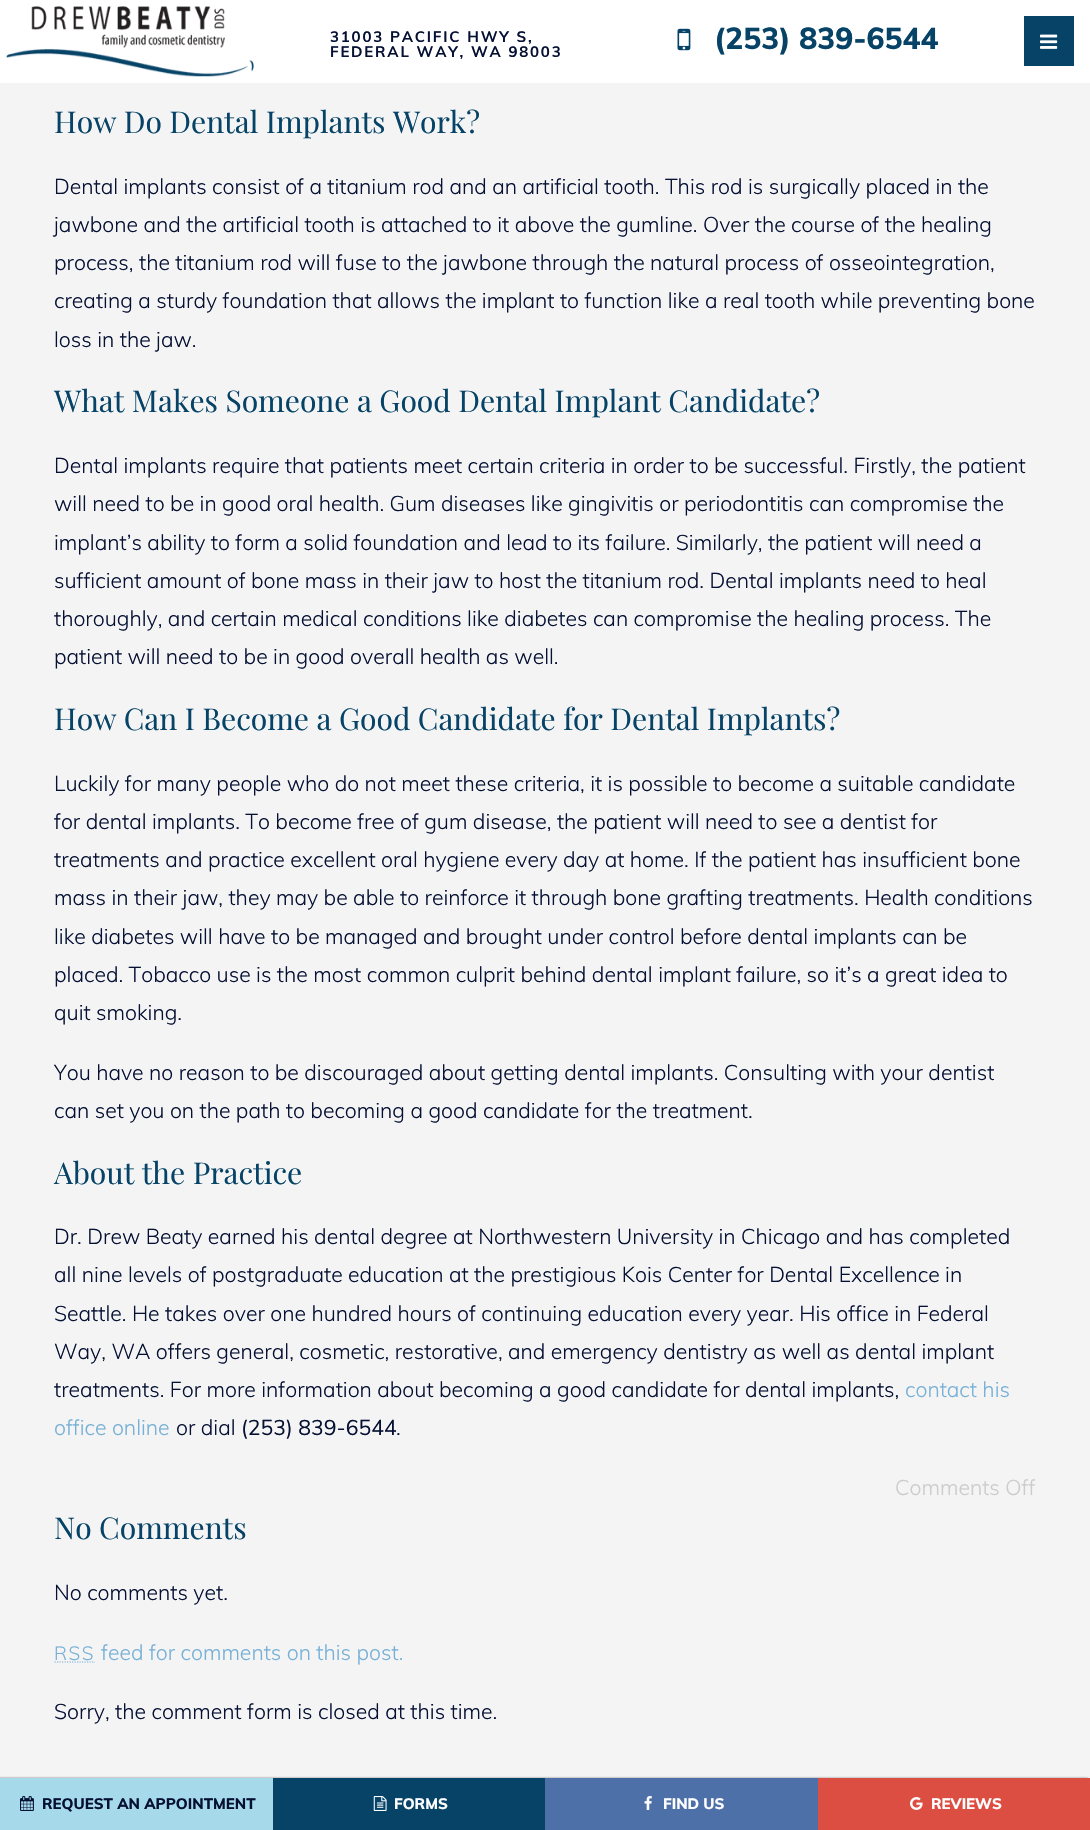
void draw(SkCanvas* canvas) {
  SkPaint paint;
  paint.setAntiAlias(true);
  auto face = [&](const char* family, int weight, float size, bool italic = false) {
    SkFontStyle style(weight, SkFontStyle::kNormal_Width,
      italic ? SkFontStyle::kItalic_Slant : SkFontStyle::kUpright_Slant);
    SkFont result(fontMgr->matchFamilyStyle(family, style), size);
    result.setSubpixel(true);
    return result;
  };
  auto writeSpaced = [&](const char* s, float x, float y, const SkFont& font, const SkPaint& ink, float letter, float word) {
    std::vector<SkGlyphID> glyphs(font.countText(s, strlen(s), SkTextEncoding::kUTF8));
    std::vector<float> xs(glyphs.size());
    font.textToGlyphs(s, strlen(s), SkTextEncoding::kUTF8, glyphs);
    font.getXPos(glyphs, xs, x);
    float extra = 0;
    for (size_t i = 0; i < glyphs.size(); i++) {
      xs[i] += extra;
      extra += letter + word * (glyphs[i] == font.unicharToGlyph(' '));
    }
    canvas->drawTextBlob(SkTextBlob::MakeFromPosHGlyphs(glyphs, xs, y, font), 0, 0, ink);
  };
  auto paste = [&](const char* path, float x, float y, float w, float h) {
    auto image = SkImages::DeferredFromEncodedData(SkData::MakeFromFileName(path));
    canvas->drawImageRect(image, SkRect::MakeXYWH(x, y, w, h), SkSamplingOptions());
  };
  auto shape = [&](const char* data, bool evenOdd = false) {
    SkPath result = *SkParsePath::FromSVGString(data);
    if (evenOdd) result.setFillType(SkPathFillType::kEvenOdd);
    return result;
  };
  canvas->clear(0xfff4f4f4);
  paint.setColor(0xffffffff);
  canvas->drawRect(SkRect::MakeXYWH(0, 0, 1090, 83), paint);
  paste("img/1.png", 6, 6, 248, 71);
  paste("img/2.png", 677, 28, 14, 23);
  paint.setColor(0xff064367);
  canvas->drawRect(SkRect::MakeXYWH(1024, 16, 50, 50), paint);
  paste("img/3.png", 1040, 34, 18, 15);
  paint.setStroke(true);
  paint.setStrokeWidth(1.2f);
  paint.setColor(0xff77b0d7);
  paint.setPathEffect(SkDashPathEffect::Make({{1.25f, 1.25f}}, 0));
  canvas->drawPath(shape("M54.5 1662H95"), paint);
  paint.setPathEffect(nullptr);
  paint.setStroke(false);
  paint.setColor(0x80000000);
  paint.setMaskFilter(SkMaskFilter::MakeBlur(kNormal_SkBlurStyle, 1));
  canvas->drawRect(SkRect::MakeXYWH(-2, 1778, 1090, 52), paint);
  paint.setMaskFilter(nullptr);
  paint.setColor(0xffa6d9ea);
  canvas->drawRect(SkRect::MakeXYWH(0, 1778, 273, 52), paint);
  paste("img/4.png", 20, 1796, 14, 15);
  paint.setColor(0xff064367);
  canvas->drawRect(SkRect::MakeXYWH(273, 1778, 272, 52), paint);
  paste("img/5.png", 373, 1796, 14, 15);
  paint.setColor(0xff4d70a8);
  canvas->drawRect(SkRect::MakeXYWH(545, 1778, 273, 52), paint);
  paste("img/6.png", 644, 1796, 8, 14);
  paint.setColor(0xffdc4e41);
  canvas->drawRect(SkRect::MakeXYWH(818, 1778, 272, 52), paint);
  paste("img/7.png", 910, 1797, 13, 13);
  auto f0 = face("Muli", 700, 15);
  paint.setColor(0xff051033);
  writeSpaced("31003 PACIFIC HWY S,", 330, 42, f0, paint, 1.8f, 0);
  writeSpaced("FEDERAL WAY, WA 98003", 330, 57, f0, paint, 1.8f, 0);
  auto f1 = face("Muli", 800, 30);
  paint.setColor(0xff064367);
  canvas->drawString("(253) 839-6544", 714, 49, f1, paint);
  auto f2 = face("Playfair Display", 400, 30);
  canvas->drawString("How Do Dental Implants Work?", 54, 133, f2, paint);
  auto f3 = face("Muli", 300, 21.25f);
  paint.setColor(0xff051033);
  {
    const struct { const char* s; float x, y; } items[] = {
      {"Dental implants consist of a titanium rod and an artificial tooth. This rod is surgically placed in the", 54, 194},
      {"jawbone and the artificial tooth is attached to it above the gumline. Over the course of the healing", 54, 232},
      {"process, the titanium rod will fuse to the jawbone through the natural process of osseointegration,", 54, 270},
      {"creating a sturdy foundation that allows the implant to function like a real tooth while preventing bone", 54, 308},
      {"loss in the jaw.", 54, 347},
    };
    for (auto [s, x, y] : items) {
      canvas->drawString(s, x, y, f3, paint);
    }
  }
  paint.setColor(0xff064367);
  canvas->drawString("What Makes Someone a Good Dental Implant Candidate?", 54, 412, f2, paint);
  paint.setColor(0xff051033);
  {
    const struct { const char* s; float x, y; } items[] = {
      {"Dental implants require that patients meet certain criteria in order to be successful. Firstly, the patient", 54, 473},
      {"will need to be in good oral health. Gum diseases like gingivitis or periodontitis can compromise the", 54, 511},
      {"implant’s ability to form a solid foundation and lead to its failure. Similarly, the patient will need a", 54, 550},
      {"sufficient amount of bone mass in their jaw to host the titanium rod. Dental implants need to heal", 54, 588},
      {"thoroughly, and certain medical conditions like diabetes can compromise the healing process. The", 54, 626},
      {"patient will need to be in good overall health as well.", 54, 664},
    };
    for (auto [s, x, y] : items) {
      canvas->drawString(s, x, y, f3, paint);
    }
  }
  paint.setColor(0xff064367);
  canvas->drawString("How Can I Become a Good Candidate for Dental Implants?", 54, 730, f2, paint);
  paint.setColor(0xff051033);
  {
    const struct { const char* s; float x, y; } items[] = {
      {"Luckily for many people who do not meet these criteria, it is possible to become a suitable candidate", 54, 791},
      {"for dental implants. To become free of gum disease, the patient will need to see a dentist for", 54, 829},
      {"treatments and practice excellent oral hygiene every day at home. If the patient has insufficient bone", 54, 867},
      {"mass in their jaw, they may be able to reinforce it through bone grafting treatments. Health conditions", 54, 905},
      {"like diabetes will have to be managed and brought under control before dental implants can be", 54, 944},
      {"placed. Tobacco use is the most common culprit behind dental implant failure, so it’s a great idea to", 54, 982},
      {"quit smoking.", 54, 1020},
      {"You have no reason to be discouraged about getting dental implants. Consulting with your dentist", 54, 1080},
      {"can set you on the path to becoming a good candidate for the treatment.", 54, 1118},
    };
    for (auto [s, x, y] : items) {
      canvas->drawString(s, x, y, f3, paint);
    }
  }
  paint.setColor(0xff064367);
  canvas->drawString("About the Practice", 54, 1184, f2, paint);
  paint.setColor(0xff051033);
  {
    const struct { const char* s; float x, y; } items[] = {
      {"Dr. Drew Beaty earned his dental degree at Northwestern University in Chicago and has completed", 54, 1244},
      {"all nine levels of postgraduate education at the prestigious Kois Center for Dental Excellence in", 54, 1282},
      {"Seattle. He takes over one hundred hours of continuing education every year. His office in Federal", 54, 1321},
      {"Way, WA offers general, cosmetic, restorative, and emergency dentistry as well as dental implant", 54, 1359},
      {"treatments. For more information about becoming a good candidate for dental implants,", 54, 1397},
    };
    for (auto [s, x, y] : items) {
      canvas->drawString(s, x, y, f3, paint);
    }
  }
  paint.setColor(0xff77b0d7);
  canvas->drawString("contact his", 905, 1397, f3, paint);
  canvas->drawString("office online", 54, 1435, f3, paint);
  paint.setColor(0xff051033);
  canvas->drawString("or dial", 176, 1435, f3, paint);
  auto f4 = face("Muli", 400, 21.25f);
  canvas->drawString("(253) 839-6544", 241, 1435, f4, paint);
  canvas->drawString(".", 396, 1435, f3, paint);
  paint.setColor(0xffcccccc);
  canvas->drawString("Comments Off", 895, 1495, f3, paint);
  paint.setColor(0xff064367);
  canvas->drawString("No Comments", 54, 1539, f2, paint);
  paint.setColor(0xff051033);
  canvas->drawString("No comments yet.", 54, 1600, f3, paint);
  auto f5 = face("Muli", 300, 19);
  paint.setColor(0xff77b0d7);
  writeSpaced("RSS", 54, 1660, f5, paint, 1.5f, 0);
  canvas->drawString("feed for comments on this post.", 101, 1660, f3, paint);
  paint.setColor(0xff051033);
  canvas->drawString("Sorry, the comment form is closed at this time.", 54, 1719, f3, paint);
  auto f6 = face("Muli", 800, 15);
  canvas->drawString("REQUEST AN APPOINTMENT", 42, 1809, f6, paint);
  paint.setColor(0xffffffff);
  {
    const struct { const char* s; float x, y; } items[] = {
      {"FORMS", 394, 1809},
      {"FIND US", 663, 1809},
      {"REVIEWS", 931, 1809},
    };
    for (auto [s, x, y] : items) {
      canvas->drawString(s, x, y, f6, paint);
    }
  }
}
